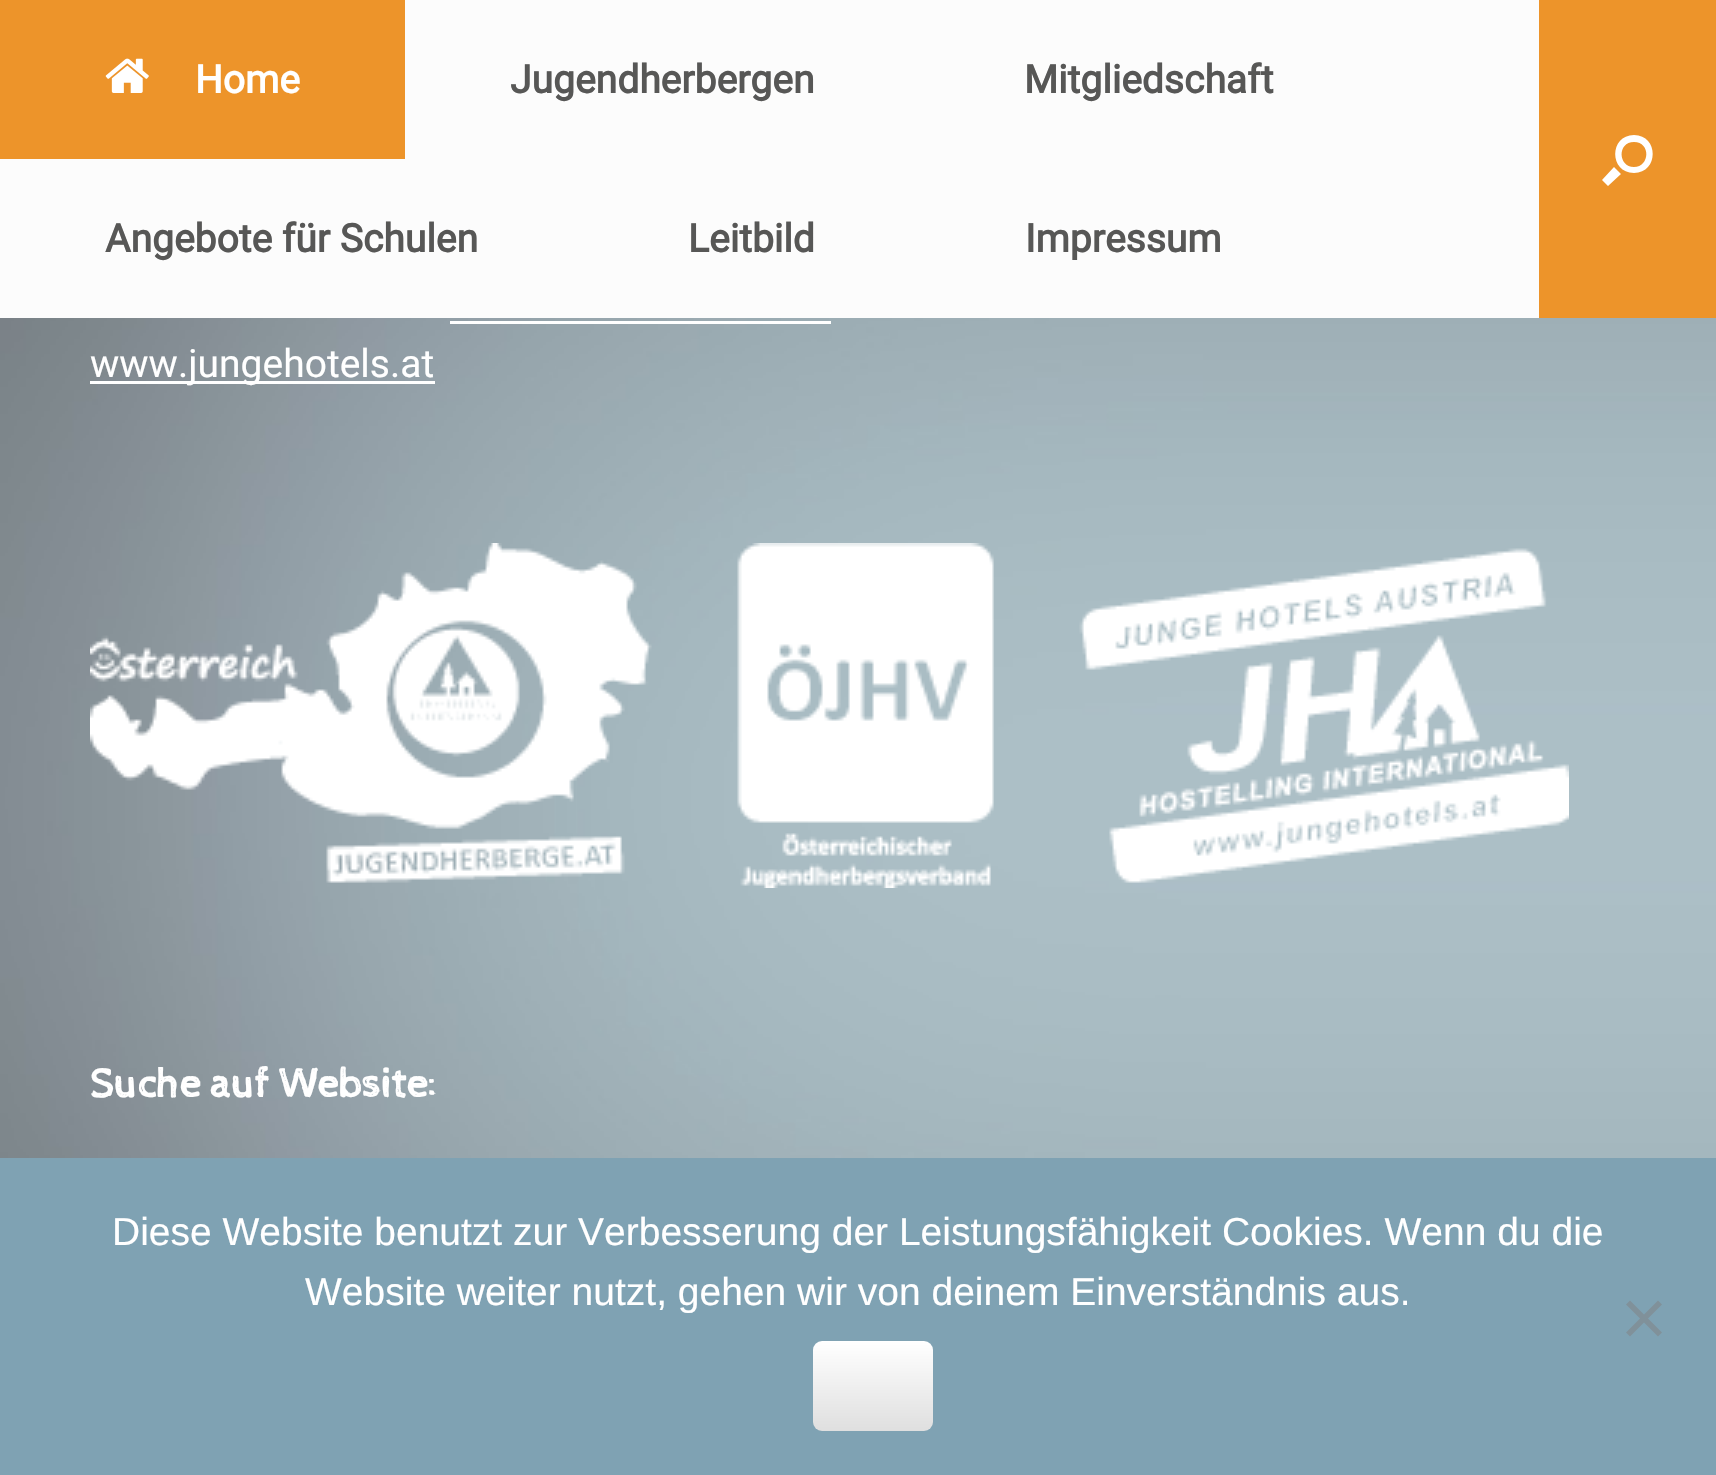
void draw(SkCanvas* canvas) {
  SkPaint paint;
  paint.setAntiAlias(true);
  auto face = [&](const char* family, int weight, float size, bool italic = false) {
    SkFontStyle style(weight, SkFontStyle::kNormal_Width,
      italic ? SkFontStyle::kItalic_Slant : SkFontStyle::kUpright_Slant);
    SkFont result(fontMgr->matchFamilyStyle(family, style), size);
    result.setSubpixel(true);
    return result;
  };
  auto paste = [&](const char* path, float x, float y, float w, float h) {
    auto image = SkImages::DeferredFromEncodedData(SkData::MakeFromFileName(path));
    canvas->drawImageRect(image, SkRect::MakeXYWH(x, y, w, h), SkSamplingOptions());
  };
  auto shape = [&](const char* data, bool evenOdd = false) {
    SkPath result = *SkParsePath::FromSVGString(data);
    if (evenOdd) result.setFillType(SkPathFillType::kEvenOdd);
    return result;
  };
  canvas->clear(0xffffffff);
  paint.setColor(0xfffcfcfc);
  canvas->drawRect(SkRect::MakeXYWH(0, 0, 1539, 318), paint);
  paint.setColor(0xffed942a);
  canvas->drawRect(SkRect::MakeXYWH(0, 0, 405, 159), paint);
  paste("img/1.png", 105, 58, 44, 35);
  canvas->drawRect(SkRect::MakeXYWH(1539, 0, 177, 318), paint);
  paint.setColor(0xffffffff);
  canvas->drawPath(shape("M1634 142C1651 142 1650 167 1634 167C1618 167 1617 142 1634 142ZM1634 135C1609 135 1609 173 1634 173C1659 173 1659 135 1634 135ZM1614 167L1621 174L1608 186L1602 180Z"), paint);
  paste("img/2.png", 0, 318, 1716, 840);
  canvas->drawRect(SkRect::MakeXYWH(450, 321, 381, 3), paint);
  canvas->drawRect(SkRect::MakeXYWH(90, 381, 345, 3), paint);
  paste("img/3.png", 90, 543, 1479, 345);
  paint.setColor(0xff7fa2b3);
  canvas->drawRect(SkRect::MakeXYWH(0, 1158, 1716, 317), paint);
  paint.setColor(0xff80919a);
  canvas->drawPath(shape("M1658 1300.5L1662 1304.5L1630 1336.5L1626 1332.5Z"), paint);
  canvas->drawPath(shape("M1626 1304.5L1630 1300.5L1662 1332.5L1658 1336.5Z"), paint);
  {
    const SkColor colors[] = {0xffdfdfdf, 0xffffffff};
    const float stops[] = {0, 1};
    const SkPoint ends[] = {{813, 1431}, {813, 1341}};
    paint.setShader(SkGradientShader::MakeLinear(ends, colors, stops, 2, SkTileMode::kClamp));
    paint.setAlpha(255);
  }
  canvas->drawRoundRect(SkRect::MakeXYWH(813, 1341, 120, 90), 9, 9, paint);
  auto f0 = face("Roboto", 700, 39);
  paint.setShader(nullptr);
  paint.setColor(0xffffffff);
  canvas->drawString("Home", 195, 93, f0, paint);
  paint.setColor(0xff575756);
  {
    const struct { const char* s; float x, y; } items[] = {
      {"Jugendherbergen", 510, 93},
      {"Mitgliedschaft", 1024, 93},
      {"Angebote für Schulen", 105, 252},
      {"Leitbild", 688, 252},
      {"Impressum", 1025, 252},
    };
    for (auto [s, x, y] : items) {
      canvas->drawString(s, x, y, f0, paint);
    }
  }
  auto f1 = face("Roboto", 400, 39);
  paint.setColor(0xffffffff);
  canvas->drawString("www.jungehotels.at", 90, 377, f1, paint);
  auto f2 = face("Cabin Sketch", 700, 42);
  canvas->drawString("Suche auf Website:", 90, 1097, f2, paint);
  auto f3 = face("Liberation Sans", 400, 39);
  canvas->drawString("Diese Website benutzt zur Verbesserung der Leistungsfähigkeit Cookies. Wenn du die", 112, 1245, f3, paint);
  canvas->drawString("Website weiter nutzt, gehen wir von deinem Einverständnis aus.", 305, 1305, f3, paint);
}
